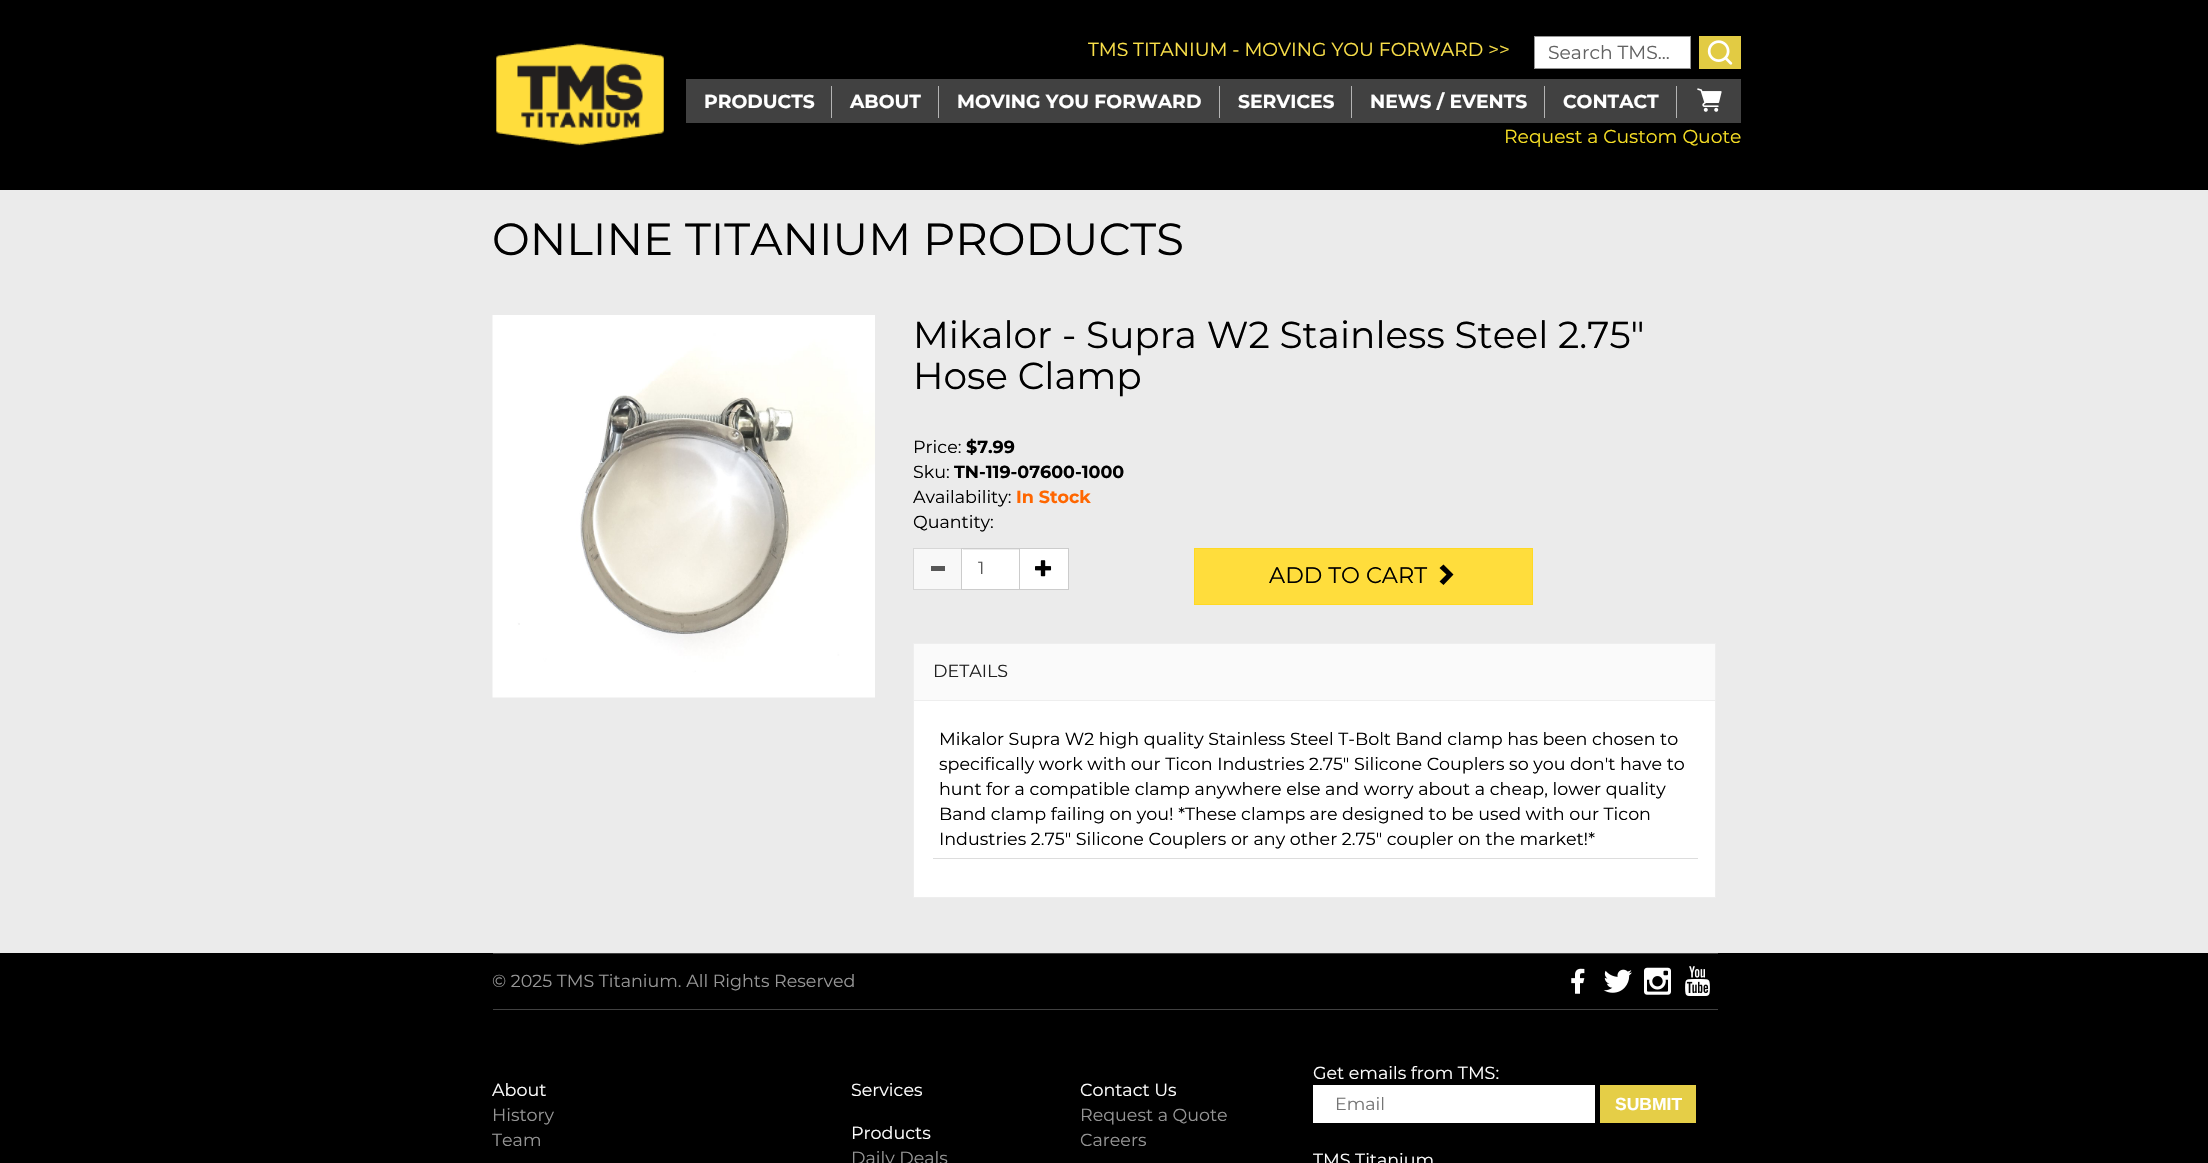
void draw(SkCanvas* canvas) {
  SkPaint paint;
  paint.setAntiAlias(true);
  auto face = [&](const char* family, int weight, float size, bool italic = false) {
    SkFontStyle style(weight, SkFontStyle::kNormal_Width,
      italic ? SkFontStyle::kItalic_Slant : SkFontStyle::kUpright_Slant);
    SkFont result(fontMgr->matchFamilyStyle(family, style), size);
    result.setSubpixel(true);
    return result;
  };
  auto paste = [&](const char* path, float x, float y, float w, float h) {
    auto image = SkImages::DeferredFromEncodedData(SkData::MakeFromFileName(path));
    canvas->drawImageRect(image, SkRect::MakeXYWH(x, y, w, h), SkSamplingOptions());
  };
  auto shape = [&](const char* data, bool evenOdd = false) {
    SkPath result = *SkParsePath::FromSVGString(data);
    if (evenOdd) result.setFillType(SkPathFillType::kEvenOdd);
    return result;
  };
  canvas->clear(0xffebebeb);
  paint.setColor(0xff000000);
  canvas->drawRect(SkRect::MakeXYWH(0, 0, 2208, 190), paint);
  paste("img/1.png", 496, 43, 168, 103);
  paint.setColor(0xffffffff);
  canvas->drawRect(SkRect::MakeXYWH(1534.5f, 36.5f, 156, 32), paint);
  paint.setStroke(true);
  paint.setStrokeWidth(1);
  paint.setColor(0xff959595);
  canvas->drawRect(SkRect::MakeXYWH(1534.5f, 36.5f, 156, 32), paint);
  paint.setStroke(false);
  paint.setColor(0xffe2cb43);
  canvas->drawRect(SkRect::MakeXYWH(1699, 36, 42, 33), paint);
  paste("img/2.png", 1707, 40, 26, 25);
  {
    const struct { float x, y, w, h; SkColor color; } items[] = {
      {686, 79, 1055, 44, 0xff414141},
      {831, 86, 1, 32, 0xffb4b4b4},
      {938, 86, 1, 32, 0xffb4b4b4},
      {1219, 86, 1, 32, 0xffb4b4b4},
      {1351, 86, 1, 32, 0xffb4b4b4},
      {1544, 86, 1, 32, 0xffb4b4b4},
      {1676, 86, 1, 32, 0xffb4b4b4},
    };
    for (auto [x, y, w, h, color] : items) {
      paint.setColor(color);
      canvas->drawRect(SkRect::MakeXYWH(x, y, w, h), paint);
    }
  }
  paste("img/3.png", 1697, 88, 25, 24);
  paste("img/4.png", 492, 315, 383, 383);
  paint.setColor(0xfff8f8f8);
  canvas->drawRect(SkRect::MakeXYWH(914, 549, 47, 40), paint);
  paint.setStroke(true);
  paint.setColor(0xffd7d7d7);
  canvas->drawRect(SkRect::MakeXYWH(913.5f, 548.5f, 49, 41), paint);
  paint.setStroke(false);
  {
    const struct { float x, y, w, h; SkColor color; } items[] = {
      {931, 566, 14, 5, 0xff575757},
      {962, 549, 57, 40, 0xffffffff},
      {963, 549, 56, 1, 0xffececec},
    };
    for (auto [x, y, w, h, color] : items) {
      paint.setColor(color);
      canvas->drawRect(SkRect::MakeXYWH(x, y, w, h), paint);
    }
  }
  paint.setStroke(true);
  paint.setColor(0xffcccccc);
  canvas->drawRect(SkRect::MakeXYWH(961.5f, 548.5f, 58, 41), paint);
  paint.setStroke(false);
  paint.setColor(0xffffffff);
  canvas->drawRect(SkRect::MakeXYWH(1019.5f, 548.5f, 49, 41), paint);
  paint.setStroke(true);
  paint.setColor(0xffcccccc);
  canvas->drawRect(SkRect::MakeXYWH(1019.5f, 548.5f, 49, 41), paint);
  paste("img/5.png", 1035, 560, 17, 17);
  paint.setStroke(false);
  paint.setColor(0xffffdd3c);
  canvas->drawRect(SkRect::MakeXYWH(1194.5f, 548.5f, 338, 56), paint);
  paint.setStroke(true);
  paint.setColor(0xffffd922);
  canvas->drawRect(SkRect::MakeXYWH(1194.5f, 548.5f, 338, 56), paint);
  paint.setStroke(false);
  paint.setColor(0xff000000);
  canvas->drawPath(shape("M1453.5 574.5L1443.5 585L1439.5 581.5L1446.5 574.5L1439.5 568L1443.5 564.5Z"), paint);
  paint.setColor(0xffffffff);
  canvas->drawRect(SkRect::MakeXYWH(914, 701, 801, 196), paint);
  paint.setStroke(true);
  paint.setColor(0xffeeeeee);
  canvas->drawRect(SkRect::MakeXYWH(913.5f, 643.5f, 802, 254), paint);
  paint.setStroke(false);
  {
    const struct { float x, y, w, h; SkColor color; } items[] = {
      {914, 644, 801, 56, 0xfffafafa},
      {914, 700, 801, 1, 0xffeeeeee},
      {933, 858, 765, 1, 0xffdddddd},
      {0, 953, 2208, 210, 0xff000000},
      {493, 953, 1225, 1, 0xff414141},
      {493, 1009, 1225, 1, 0xff414141},
    };
    for (auto [x, y, w, h, color] : items) {
      paint.setColor(color);
      canvas->drawRect(SkRect::MakeXYWH(x, y, w, h), paint);
    }
  }
  paste("img/6.png", 1571, 968, 14, 26);
  paste("img/7.png", 1603, 969, 29, 24);
  paste("img/8.png", 1644, 967, 27, 28);
  paste("img/9.png", 1685, 966, 25, 30);
  paint.setColor(0xffffffff);
  canvas->drawRect(SkRect::MakeXYWH(1313, 1085, 282, 38), paint);
  paint.setColor(0xffe5ce47);
  canvas->drawRect(SkRect::MakeXYWH(1600, 1085, 96, 38), paint);
  auto f0 = face("Montserrat", 400, 18.75f);
  paint.setColor(0xfffae049);
  canvas->drawString("TMS TITANIUM - MOVING YOU FORWARD >>", 1088, 56, f0, paint);
  paint.setColor(0xff636363);
  canvas->drawString("Search TMS...", 1548, 59, f0, paint);
  auto f1 = face("Montserrat", 700, 18.75f);
  paint.setColor(0xffffffff);
  {
    const struct { const char* s; float x, y; } items[] = {
      {"PRODUCTS", 704, 108},
      {"ABOUT", 850, 108},
      {"MOVING YOU FORWARD", 957, 108},
      {"SERVICES", 1238, 108},
      {"NEWS / EVENTS", 1370, 108},
      {"CONTACT", 1563, 108},
    };
    for (auto [s, x, y] : items) {
      canvas->drawString(s, x, y, f1, paint);
    }
  }
  paint.setColor(0xfff7df25);
  canvas->drawString("Request a Custom Quote", 1504, 143, f0, paint);
  auto f2 = face("Montserrat", 400, 45);
  paint.setColor(0xff000000);
  canvas->drawString("ONLINE TITANIUM PRODUCTS", 492, 255, f2, paint);
  auto f3 = face("Montserrat", 400, 37.5f);
  canvas->drawString("Mikalor - Supra W2 Stainless Steel 2.75\"", 913, 348, f3, paint);
  canvas->drawString("Hose Clamp", 913, 389, f3, paint);
  auto f4 = face("Montserrat", 400, 17.5f);
  canvas->drawString("Price:", 913, 453, f4, paint);
  auto f5 = face("Montserrat", 700, 17.5f);
  canvas->drawString("$7.99", 966, 453, f5, paint);
  canvas->drawString("Sku:", 913, 478, f4, paint);
  canvas->drawString("TN-119-07600-1000", 954, 478, f5, paint);
  canvas->drawString("Availability:", 913, 503, f4, paint);
  paint.setColor(0xffff6600);
  canvas->drawString("In Stock", 1016, 503, f5, paint);
  paint.setColor(0xff000000);
  canvas->drawString("Quantity:", 913, 528, f4, paint);
  paint.setColor(0xff555555);
  canvas->drawString("1", 978, 574, f4, paint);
  auto f6 = face("Montserrat", 400, 22.5f);
  paint.setColor(0xff000000);
  canvas->drawString("ADD TO CART", 1269, 583, f6, paint);
  paint.setColor(0xff212121);
  canvas->drawString("DETAILS", 933, 677, f4, paint);
  paint.setColor(0xff000000);
  {
    const struct { const char* s; float x, y; } items[] = {
      {"Mikalor Supra W2 high quality Stainless Steel T-Bolt Band clamp has been chosen to", 939, 745},
      {"specifically work with our Ticon Industries 2.75\" Silicone Couplers so you don't have to", 939, 770},
      {"hunt for a compatible clamp anywhere else and worry about a cheap, lower quality", 939, 795},
      {"Band clamp failing on you! *These clamps are designed to be used with our Ticon", 939, 820},
      {"Industries 2.75\" Silicone Couplers or any other 2.75\" coupler on the market!*", 939, 845},
    };
    for (auto [s, x, y] : items) {
      canvas->drawString(s, x, y, f4, paint);
    }
  }
  paint.setColor(0xff959595);
  canvas->drawString("© 2025 TMS Titanium. All Rights Reserved", 492, 987, f4, paint);
  paint.setColor(0xffffffff);
  canvas->drawString("About", 492, 1096, f4, paint);
  paint.setColor(0xff959595);
  canvas->drawString("History", 492, 1121, f4, paint);
  canvas->drawString("Team", 492, 1146, f4, paint);
  paint.setColor(0xffffffff);
  canvas->drawString("Services", 851, 1096, f4, paint);
  canvas->drawString("Products", 851, 1139, f4, paint);
  paint.setColor(0xff959595);
  canvas->drawString("Daily Deals", 851, 1164, f4, paint);
  paint.setColor(0xffffffff);
  canvas->drawString("Contact Us", 1080, 1096, f4, paint);
  paint.setColor(0xff959595);
  canvas->drawString("Request a Quote", 1080, 1121, f4, paint);
  canvas->drawString("Careers", 1080, 1146, f4, paint);
  paint.setColor(0xffffffff);
  canvas->drawString("Get emails from TMS:", 1313, 1079, f4, paint);
  paint.setColor(0xff757575);
  canvas->drawString("Email", 1335, 1110, f4, paint);
  auto f7 = face("Liberation Sans", 700, 17.5f);
  paint.setColor(0xffffffff);
  canvas->drawString("SUBMIT", 1615, 1110, f7, paint);
  canvas->drawString("TMS Titanium", 1313, 1166, f4, paint);
}
